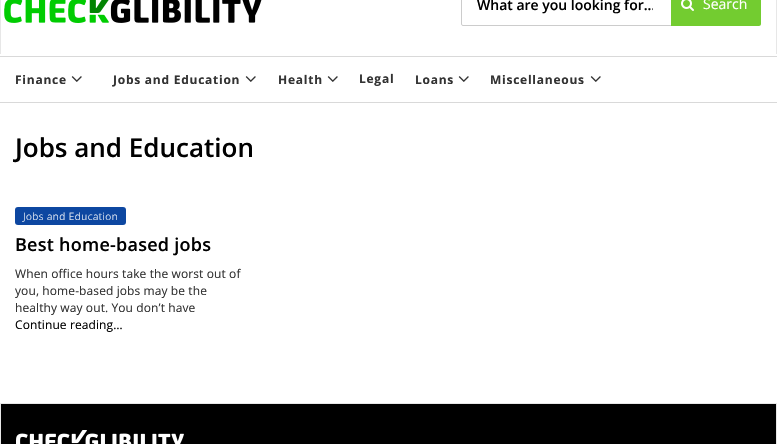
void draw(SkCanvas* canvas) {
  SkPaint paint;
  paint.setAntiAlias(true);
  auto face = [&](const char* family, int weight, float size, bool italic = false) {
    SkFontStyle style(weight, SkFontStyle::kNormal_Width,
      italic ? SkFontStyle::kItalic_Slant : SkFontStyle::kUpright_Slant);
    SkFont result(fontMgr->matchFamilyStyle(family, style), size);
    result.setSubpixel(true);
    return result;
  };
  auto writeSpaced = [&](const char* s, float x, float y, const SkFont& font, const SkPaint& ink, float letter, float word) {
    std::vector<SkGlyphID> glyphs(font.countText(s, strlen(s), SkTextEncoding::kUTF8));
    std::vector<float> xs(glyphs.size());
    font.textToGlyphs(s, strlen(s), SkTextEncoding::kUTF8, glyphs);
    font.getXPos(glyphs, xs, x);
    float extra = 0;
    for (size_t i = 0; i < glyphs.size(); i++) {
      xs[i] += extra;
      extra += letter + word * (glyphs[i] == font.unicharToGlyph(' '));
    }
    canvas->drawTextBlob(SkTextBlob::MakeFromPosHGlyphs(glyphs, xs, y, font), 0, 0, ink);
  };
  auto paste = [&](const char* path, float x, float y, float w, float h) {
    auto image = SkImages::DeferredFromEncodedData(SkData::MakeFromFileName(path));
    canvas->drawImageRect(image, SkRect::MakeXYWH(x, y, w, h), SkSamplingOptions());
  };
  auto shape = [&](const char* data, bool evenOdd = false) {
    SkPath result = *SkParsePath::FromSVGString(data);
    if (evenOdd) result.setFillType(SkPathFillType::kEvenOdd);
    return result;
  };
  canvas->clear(0xffffffff);
  paint.setColor(0xffe7e7e7);
  canvas->drawRect(SkRect::MakeXYWH(776, 0, 1, 54), paint);
  canvas->drawRect(SkRect::MakeXYWH(0, 0, 1, 54), paint);
  paste("img/1.png", 4, 0, 258, 23);
  paint.setStroke(true);
  paint.setStrokeWidth(1);
  paint.setColor(0xffcccccc);
  canvas->drawRoundRect(SkRect::MakeXYWH(461.5f, -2.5f, 211, 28), 1.5f, 1.5f, paint);
  paint.setStroke(false);
  paint.setColor(0xff73cc30);
  canvas->drawPath(shape("M671-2H759C760-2 761-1 761 0V24C761 25 760 26 759 26H671Z"), paint);
  paste("img/2.png", 681, 0, 13, 11);
  paint.setColor(0xffd9d9d9);
  canvas->drawRect(SkRect::MakeXYWH(0, 56, 777, 1), paint);
  canvas->drawRect(SkRect::MakeXYWH(0, 102, 777, 1), paint);
  paste("img/3.png", 71, 76, 11, 6);
  paste("img/3.png", 245, 76, 11, 6);
  paste("img/3.png", 327, 76, 11, 6);
  paste("img/3.png", 458, 76, 11, 6);
  paste("img/3.png", 590, 76, 11, 6);
  paint.setColor(0xff0d47a1);
  canvas->drawRoundRect(SkRect::MakeXYWH(15, 207, 111, 18), 3, 3, paint);
  {
    const struct { float x, y, w, h; SkColor color; } items[] = {
      {1, 404, 775, 40, 0xff000000},
      {0, 403, 777, 1, 0xffe7e7e7},
      {776, 403, 1, 41, 0xffe7e7e7},
      {0, 403, 1, 41, 0xffe7e7e7},
    };
    for (auto [x, y, w, h, color] : items) {
      paint.setColor(color);
      canvas->drawRect(SkRect::MakeXYWH(x, y, w, h), paint);
    }
  }
  paste("img/4.png", 16, 430, 168, 14);
  canvas->save();
  canvas->clipRect(SkRect::MakeXYWH(477, 0, 176, 14));
  auto f0 = face("Open Sans", 600, 14);
  paint.setColor(0xff000000);
  canvas->drawString("What are you looking for...", 477, 10, f0, paint);
  canvas->restore();
  auto f1 = face("Open Sans", 400, 14);
  paint.setColor(0xffffffff);
  canvas->drawString("Search", 703, 9, f1, paint);
  auto f2 = face("Open Sans", 700, 12);
  paint.setColor(0xff333333);
  {
    const struct { const char* s; float x, y; } items[] = {
      {"Finance", 15, 84},
      {"Jobs and Education", 113, 84},
      {"Health", 278, 84},
      {"Legal", 359, 83},
      {"Loans", 415, 84},
      {"Miscellaneous", 490, 84},
    };
    for (auto [s, x, y] : items) {
      writeSpaced(s, x, y, f2, paint, 0.75f, 0);
    }
  }
  auto f3 = face("Open Sans", 600, 26);
  paint.setColor(0xff000000);
  canvas->drawString("Jobs and Education", 15, 157, f3, paint);
  auto f4 = face("Open Sans", 300, 10);
  paint.setColor(0xffffffff);
  writeSpaced("Jobs and Education", 23, 220, f4, paint, 0.5f, 0);
  auto f5 = face("Open Sans", 600, 18);
  paint.setColor(0xff000000);
  writeSpaced("Best home-based jobs", 15, 251, f5, paint, 0.25f, 0);
  auto f6 = face("Open Sans", 400, 12);
  paint.setColor(0xff333333);
  {
    const struct { const char* s; float x, y; } items[] = {
      {"When office hours take the worst out of", 15, 278},
      {"you, home-based jobs may be the", 15, 295},
      {"healthy way out. You don’t have", 15, 312},
    };
    for (auto [s, x, y] : items) {
      writeSpaced(s, x, y, f6, paint, 0.1f, 0);
    }
  }
  paint.setColor(0xff000000);
  writeSpaced("Continue reading…", 15, 329, f6, paint, 0.1f, 0);
}
